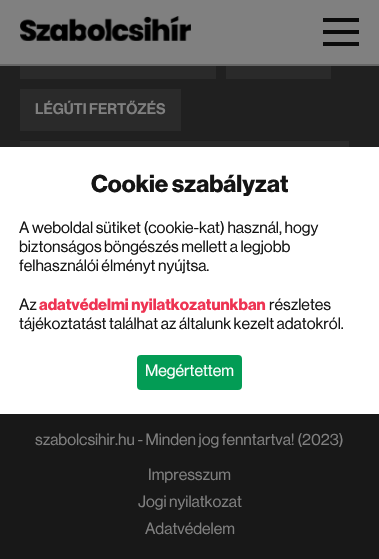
void draw(SkCanvas* canvas) {
  SkPaint paint;
  paint.setAntiAlias(true);
  auto face = [&](const char* family, int weight, float size, bool italic = false) {
    SkFontStyle style(weight, SkFontStyle::kNormal_Width,
      italic ? SkFontStyle::kItalic_Slant : SkFontStyle::kUpright_Slant);
    SkFont result(fontMgr->matchFamilyStyle(family, style), size);
    result.setSubpixel(true);
    return result;
  };
  auto paste = [&](const char* path, float x, float y, float w, float h) {
    auto image = SkImages::DeferredFromEncodedData(SkData::MakeFromFileName(path));
    canvas->drawImageRect(image, SkRect::MakeXYWH(x, y, w, h), SkSamplingOptions());
  };
  canvas->clear(0xff202020);
  paint.setColor(0xff808080);
  canvas->drawRect(SkRect::MakeXYWH(0, 0, 379, 64), paint);
  paint.setColor(0xff666666);
  canvas->drawRect(SkRect::MakeXYWH(0, 64, 379, 2), paint);
  paste("img/1.png", 20, 16, 171, 25);
  {
    const struct { float x, y, w, h; SkColor color; } items[] = {
      {323, 18, 36, 4, 0xff0b0b0b},
      {323, 30, 36, 4, 0xff0b0b0b},
      {323, 42, 36, 4, 0xff0b0b0b},
      {20, 66, 196, 13, 0xff2a2a2a},
      {226, 66, 105, 13, 0xff2a2a2a},
      {20, 89, 161, 42, 0xff2a2a2a},
      {20, 141, 329, 6, 0xff2a2a2a},
      {0, 414, 379, 145, 0xff181818},
      {0, 147, 379, 267, 0xffffffff},
    };
    for (auto [x, y, w, h, color] : items) {
      paint.setColor(color);
      canvas->drawRect(SkRect::MakeXYWH(x, y, w, h), paint);
    }
  }
  paint.setColor(0xff039c55);
  canvas->drawRoundRect(SkRect::MakeXYWH(137, 355, 105, 35), 4, 4, paint);
  auto f0 = face("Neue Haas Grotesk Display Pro", 600, 15);
  paint.setColor(0xff808080);
  canvas->drawString("LÉGÚTI FERTŐZÉS", 35, 114, f0, paint);
  auto f1 = face("Neue Haas Grotesk Display Pro", 400, 16);
  {
    const struct { const char* s; float x, y; } items[] = {
      {"szabolcsihir.hu - Minden jog fenntartva! (2023)", 35, 445},
      {"Impresszum", 148, 480},
      {"Jogi nyilatkozat", 138, 507},
      {"Adatvédelem", 145, 534},
    };
    for (auto [s, x, y] : items) {
      canvas->drawString(s, x, y, f1, paint);
    }
  }
  auto f2 = face("Neue Haas Grotesk Display Pro", 700, 24);
  paint.setColor(0xff151515);
  canvas->drawString("Cookie szabályzat", 91, 192, f2, paint);
  {
    const struct { const char* s; float x, y; } items[] = {
      {"A weboldal sütiket (cookie-kat) használ, hogy", 19, 233},
      {"biztonságos böngészés mellett a legjobb", 19, 252},
      {"felhasználói élményt nyújtsa.", 19, 271},
      {"Az", 19, 310},
    };
    for (auto [s, x, y] : items) {
      canvas->drawString(s, x, y, f1, paint);
    }
  }
  auto f3 = face("Neue Haas Grotesk Display Pro", 700, 16);
  paint.setColor(0xffee3453);
  canvas->drawString("adatvédelmi nyilatkozatunkban", 39, 310, f3, paint);
  paint.setColor(0xff151515);
  canvas->drawString("részletes", 269, 310, f1, paint);
  canvas->drawString("tájékoztatást találhat az általunk kezelt adatokról.", 19, 329, f1, paint);
  paint.setColor(0xffffffff);
  canvas->drawString("Megértettem", 145, 376, f1, paint);
}
